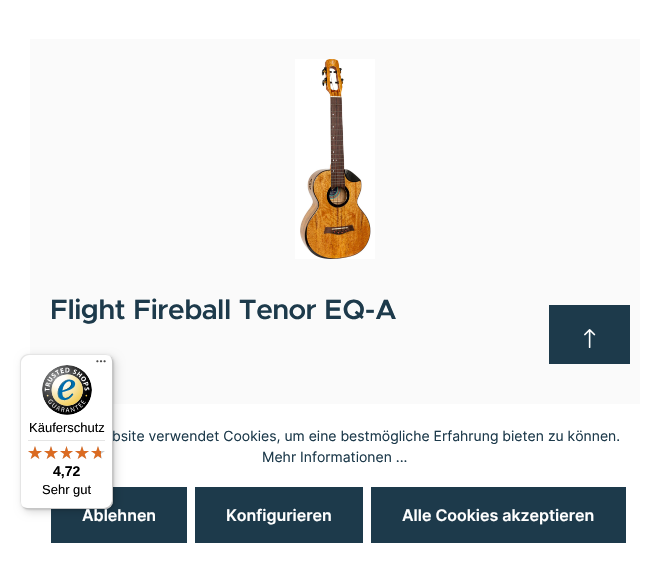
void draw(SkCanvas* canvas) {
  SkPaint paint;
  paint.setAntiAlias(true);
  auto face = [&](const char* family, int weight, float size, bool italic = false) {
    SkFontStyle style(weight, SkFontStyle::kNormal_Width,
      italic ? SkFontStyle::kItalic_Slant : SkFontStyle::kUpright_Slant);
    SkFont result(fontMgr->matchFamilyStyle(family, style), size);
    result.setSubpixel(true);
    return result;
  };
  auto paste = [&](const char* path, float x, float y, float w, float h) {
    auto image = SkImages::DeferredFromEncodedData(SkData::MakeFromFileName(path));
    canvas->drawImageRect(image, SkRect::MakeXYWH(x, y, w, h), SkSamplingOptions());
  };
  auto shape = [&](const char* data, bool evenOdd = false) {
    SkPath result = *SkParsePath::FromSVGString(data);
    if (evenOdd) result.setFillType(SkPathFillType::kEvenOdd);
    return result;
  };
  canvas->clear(0xffffffff);
  paint.setColor(0xfffafafa);
  canvas->drawRect(SkRect::MakeXYWH(30, 39, 610, 365), paint);
  paste("img/1.png", 295, 59, 80, 200);
  paint.setColor(0xff1d3a4b);
  canvas->drawRect(SkRect::MakeXYWH(549, 305, 81, 59), paint);
  paste("img/2.png", 584, 329, 12, 19);
  canvas->drawRect(SkRect::MakeXYWH(51, 487, 136, 56), paint);
  paint.setColor(0x26000000);
  paint.setMaskFilter(SkMaskFilter::MakeBlur(kNormal_SkBlurStyle, 4));
  canvas->drawRoundRect(SkRect::MakeXYWH(23, 357, 93, 155), 8, 8, paint);
  paint.setMaskFilter(nullptr);
  paint.setMaskFilter(SkMaskFilter::MakeBlur(kNormal_SkBlurStyle, 1));
  canvas->drawRoundRect(SkRect::MakeXYWH(21, 355, 93, 155), 8, 8, paint);
  paint.setMaskFilter(nullptr);
  paint.setColor(0xffffffff);
  canvas->drawRoundRect(SkRect::MakeXYWH(20, 354, 93, 155), 8, 8, paint);
  paint.setColor(0xffe5e5e5);
  canvas->drawPath(shape("M29 355H106C108 355 110 356 112 358C110 356 108 354 105 354H28C24 354 20 358 20 362V501C20 504 22 506 24 508C22 506 21 504 21 502V363C21 359 25 355 29 355Z"), paint);
  paint.setColor(0x33000000);
  canvas->drawPath(shape("M21 505C23 507 25 509 28 509H105C109 509 113 505 113 501V362C113 359 111 357 109 355C111 357 112 359 112 361V500C112 504 108 508 104 508H27C25 508 23 507 21 505Z"), paint);
  paint.setColor(0x33323232);
  canvas->drawPath(shape("M22 506C23 508 26 509 28 509H105C109 509 113 505 113 501V362C113 360 112 357 110 356C111 357 112 359 112 361V500C112 505 109 508 104 508H27C25 508 23 507 22 506Z"), paint);
  paint.setColor(0x4dffffff);
  canvas->drawPath(shape("M112 362C112 357 109 354 104 354H105C109 354 113 358 113 362V501C113 505 109 509 105 509H28C24 509 20 505 20 501V500C20 505 23 508 28 508H104C109 508 112 505 112 500Z"), paint);
  paste("img/3.png", 96, 360, 10, 3);
  paste("img/4.png", 42, 365, 50, 50);
  paint.setColor(0xffe5e5e5);
  canvas->drawRect(SkRect::MakeXYWH(28, 440, 77, 1), paint);
  paste("img/5.png", 28, 446, 14, 13);
  paste("img/5.png", 44, 446, 14, 13);
  paste("img/6.png", 60, 446, 13, 13);
  paste("img/5.png", 75, 446, 14, 13);
  paste("img/5.png", 91, 446, 14, 13);
  paste("img/7.png", 28, 446, 14, 13);
  paste("img/7.png", 44, 446, 14, 13);
  paste("img/8.png", 60, 446, 13, 13);
  paste("img/7.png", 75, 446, 14, 13);
  paste("img/9.png", 91, 446, 10, 13);
  paint.setColor(0xff1d3a4b);
  canvas->drawRect(SkRect::MakeXYWH(195, 487, 168, 56), paint);
  canvas->drawRect(SkRect::MakeXYWH(371, 487, 255, 56), paint);
  auto f0 = face("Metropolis", 600, 28);
  canvas->drawString("Flight Fireball Tenor EQ-A", 50, 319, f0, paint);
  auto f1 = face("Liberation Sans", 400, 13);
  paint.setColor(0xff000000);
  canvas->drawString("Käuferschutz", 29, 432, f1, paint);
  auto f2 = face("Liberation Sans", 700, 14);
  canvas->drawString("4,72", 53, 476, f2, paint);
  canvas->drawString("Sehr gut", 42, 494, f1, paint);
  auto f3 = face("Inter", 400, 14);
  paint.setColor(0xff1d3a4b);
  canvas->drawString("bsite verwendet Cookies, um eine bestmögliche Erfahrung bieten zu können.", 112, 441, f3, paint);
  canvas->drawString("Mehr Informationen ...", 262, 462, f3, paint);
  auto f4 = face("Inter", 600, 16);
  paint.setColor(0xffffffff);
  {
    const struct { const char* s; float x, y; } items[] = {
      {"Ablehnen", 82, 521},
      {"Konfigurieren", 226, 521},
      {"Alle Cookies akzeptieren", 402, 521},
    };
    for (auto [s, x, y] : items) {
      canvas->drawString(s, x, y, f4, paint);
    }
  }
}
